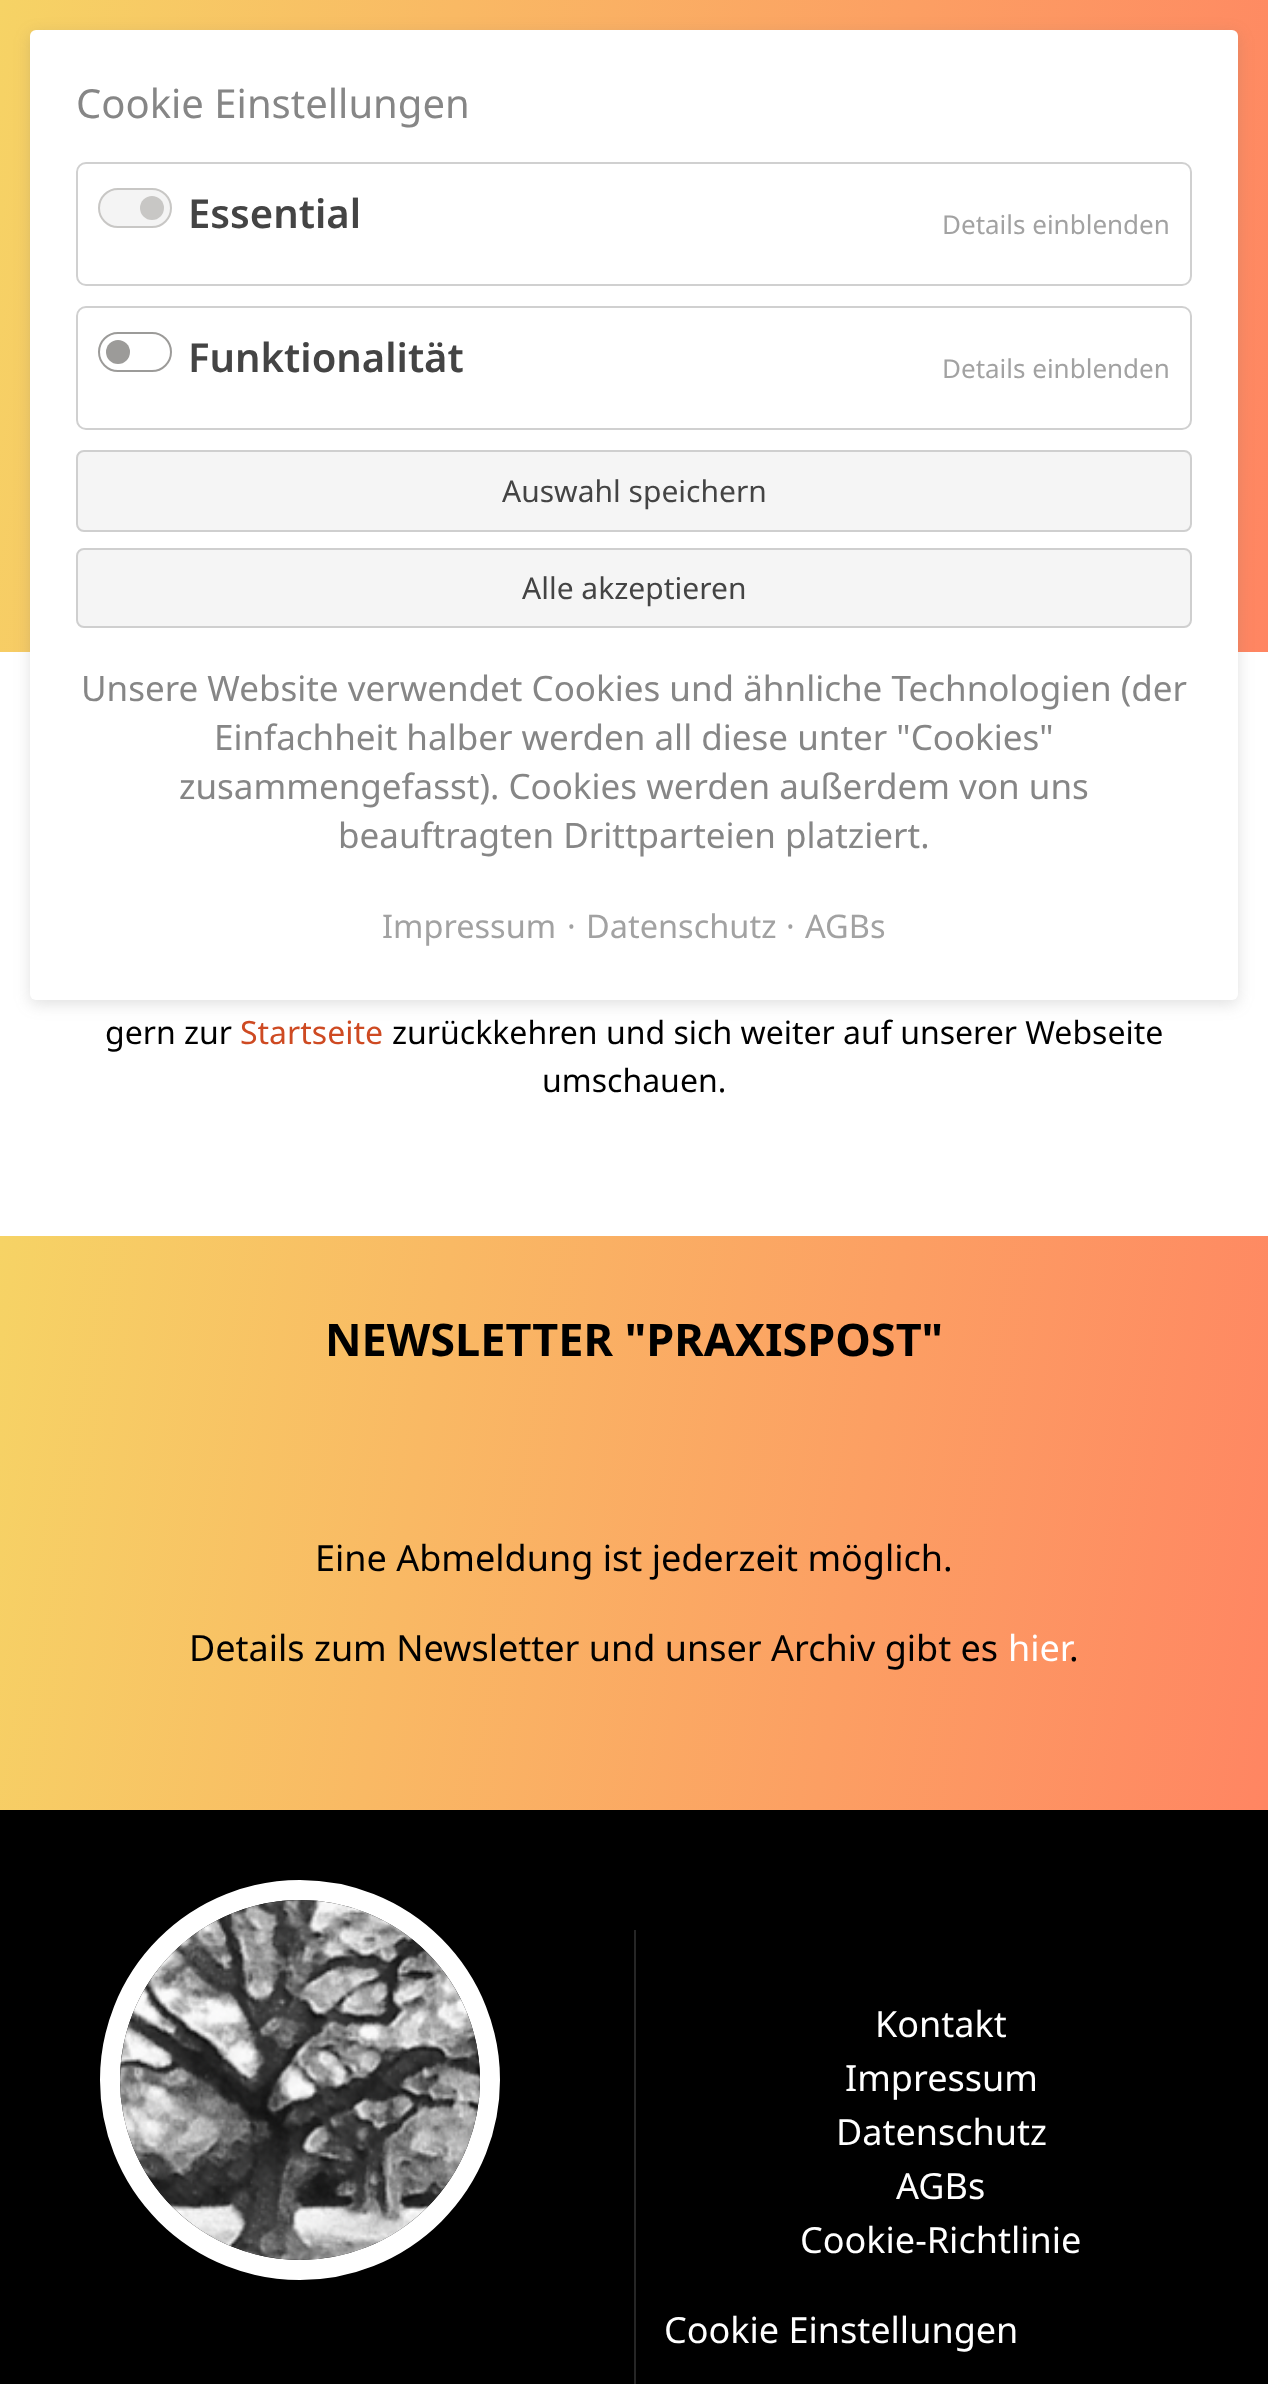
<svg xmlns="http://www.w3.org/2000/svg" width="1268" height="2384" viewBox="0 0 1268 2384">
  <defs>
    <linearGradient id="g1" gradientUnits="userSpaceOnUse" x1="-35" y1="220" x2="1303" y2="432"><stop offset="0" stop-color="rgb(246,211,101)"/><stop offset="1" stop-color="rgb(255,133,98)"/></linearGradient>
    <linearGradient id="g2" gradientUnits="userSpaceOnUse" x1="-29" y1="1418" x2="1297" y2="1628"><stop offset="0" stop-color="rgb(246,211,101)"/><stop offset="1" stop-color="rgb(255,133,98)"/></linearGradient>
  </defs>
  <rect width="100%" height="100%" fill="rgb(255,255,255)"/>
  <rect x="0" y="0" width="1268" height="652" fill="url(#g1)"/>
  <rect x="30" y="34" width="1208" height="970" rx="6" fill="rgba(99,99,99,0.2)" filter="blur(8px)"/>
  <rect x="30" y="30" width="1208" height="970" rx="6" fill="rgb(255,255,255)"/>
  <text x="76" y="118" font-family="Noto Sans" font-size="40" fill="rgb(134,134,134)">Cookie Einstellungen</text>
  <rect x="77" y="163" width="1114" height="122" rx="9" fill="none" stroke="rgb(208,208,208)" stroke-width="2"/>
  <rect x="99" y="189" width="72" height="38" rx="19" fill="rgb(244,244,244)" stroke="rgb(200,199,197)" stroke-width="2"/>
  <circle cx="152" cy="208" r="12" fill="rgb(200,199,197)"/>
  <text x="188" y="228" font-family="Noto Sans" font-size="40" font-weight="600" fill="rgb(68,68,68)">Essential</text>
  <text x="942" y="234" font-family="Noto Sans" font-size="26" fill="rgb(162,162,162)">Details einblenden</text>
  <rect x="77" y="307" width="1114" height="122" rx="9" fill="none" stroke="rgb(208,208,208)" stroke-width="2"/>
  <rect x="99" y="333" width="72" height="38" rx="19" fill="none" stroke="rgb(156,155,153)" stroke-width="2"/>
  <circle cx="118" cy="352" r="12" fill="rgb(156,155,153)"/>
  <text x="188" y="372" font-family="Noto Sans" font-size="40" font-weight="600" fill="rgb(68,68,68)">Funktionalität</text>
  <text x="942" y="378" font-family="Noto Sans" font-size="26" fill="rgb(162,162,162)">Details einblenden</text>
  <rect x="77" y="451" width="1114" height="80" rx="7" fill="rgb(245,245,245)" stroke="rgb(207,207,207)" stroke-width="2"/>
  <text x="502" y="502" font-family="Noto Sans" font-size="30" fill="rgb(68,68,68)">Auswahl speichern</text>
  <rect x="77" y="549" width="1114" height="78" rx="7" fill="rgb(245,245,245)" stroke="rgb(207,207,207)" stroke-width="2"/>
  <text x="522" y="599" font-family="Noto Sans" font-size="30" fill="rgb(68,68,68)">Alle akzeptieren</text>
  <g font-family="Noto Sans" font-size="35" fill="rgb(134,134,134)">
    <text x="81" y="701">Unsere Website verwendet Cookies und ähnliche Technologien (der</text>
    <text x="214" y="750">Einfachheit halber werden all diese unter "Cookies"</text>
    <text x="179" y="799">zusammengefasst). Cookies werden außerdem von uns</text>
    <text x="338" y="848">beauftragten Drittparteien platziert.</text>
  </g>
  <g font-family="Noto Sans" font-size="32.5" fill="rgb(162,162,162)">
    <text x="382" y="938">Impressum</text>
    <text x="567" y="938">·</text>
    <text x="586" y="938">Datenschutz</text>
    <text x="786" y="938">·</text>
    <text x="805" y="938">AGBs</text>
  </g>
  <text x="105" y="1044" font-family="Noto Sans" font-size="32" fill="rgb(0,0,0)">gern zur</text>
  <text x="240" y="1044" font-family="Noto Sans" font-size="32" fill="rgb(206,74,34)">Startseite</text>
  <g font-family="Noto Sans" font-size="32" fill="rgb(0,0,0)">
    <text x="392" y="1044">zurückkehren und sich weiter auf unserer Webseite</text>
    <text x="542" y="1092">umschauen.</text>
  </g>
  <rect x="0" y="1236" width="1268" height="574" fill="url(#g2)"/>
  <text x="325" y="1356" font-family="Noto Sans" font-size="45" font-weight="bold" fill="rgb(0,0,0)">NEWSLETTER "PRAXISPOST"</text>
  <g font-family="Noto Sans" font-size="36" fill="rgb(0,0,0)">
    <text x="315" y="1571">Eine Abmeldung ist jederzeit möglich.</text>
    <text x="189" y="1661">Details zum Newsletter und unser Archiv gibt es</text>
  </g>
  <text x="1008" y="1661" font-family="Noto Sans" font-size="36" fill="rgb(255,255,255)">hier</text>
  <text x="1069" y="1661" font-family="Noto Sans" font-size="36" fill="rgb(0,0,0)">.</text>
  <rect x="0" y="1810" width="1268" height="574" fill="rgb(0,0,0)"/>
  <circle cx="300" cy="2080" r="190" fill="none" stroke="rgb(255,255,255)" stroke-width="20"/>
  <image x="120" y="1900" width="360" height="360" href="pic1.png"/>
  <rect x="634" y="1930" width="2" height="454" fill="rgb(38,38,38)"/>
  <g font-family="Noto Sans" font-size="36" fill="rgb(255,255,255)">
    <text x="875" y="2037">Kontakt</text>
    <text x="845" y="2091">Impressum</text>
    <text x="836" y="2145">Datenschutz</text>
    <text x="896" y="2199">AGBs</text>
    <text x="800" y="2253">Cookie-Richtlinie</text>
    <text x="664" y="2343">Cookie Einstellungen</text>
  </g>
</svg>
